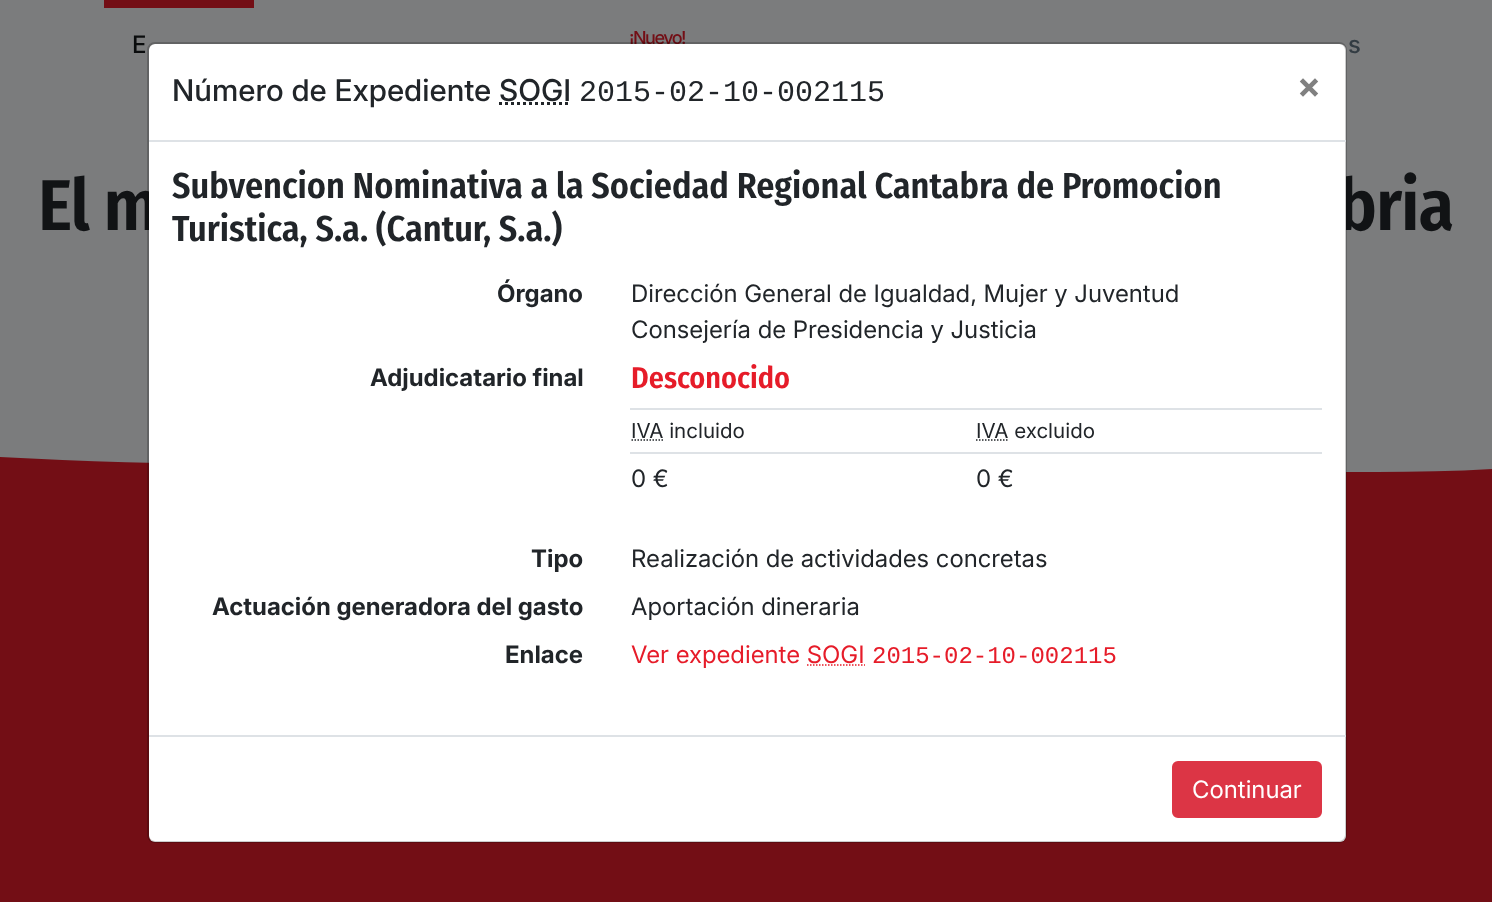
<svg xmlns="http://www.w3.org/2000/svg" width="1492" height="902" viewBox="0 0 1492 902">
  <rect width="100%" height="100%" fill="rgb(123,124,125)"/>
  <rect x="104" y="0" width="150" height="8" fill="rgb(115,14,21)"/>
  <text x="132" y="53" font-family="Inter" font-size="24" font-weight="500" fill="rgb(10,12,13)">E</text>
  <text x="629" y="44" font-family="'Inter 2'" font-size="18" font-weight="500" letter-spacing="-1.5" fill="rgb(115,14,21)">¡Nuevo!</text>
  <text x="1348" y="53" font-family="Inter" font-size="24" font-weight="500" fill="rgb(51,60,67)">s</text>
  <g font-family="Fira Sans Condensed" font-size="72" font-weight="600" letter-spacing="-1" fill="rgb(17,19,21)">
    <text x="38" y="230">El m</text>
    <text x="1338" y="230">bria</text>
  </g>
  <rect x="0" y="457" width="1492" height="445" fill="rgb(115,14,21)"/>
  <path d="M400 462C472 460 542 456 614 454C716 451 823 451 925 454C1025 457 1128 465 1226 469C1313 472 1408 474 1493 469V452H0V457C127 464 266 466 400 462Z" fill="rgb(123,124,125)"/>
  <rect x="149" y="44" width="1197" height="798" rx="6" fill="rgb(255,255,255)"/>
  <rect x="148" y="43" width="1198" height="799" rx="7" fill="none" stroke="rgba(0,0,0,0.2)" stroke-width="2"/>
  <rect x="149" y="140" width="1197" height="2" fill="rgb(222,226,230)"/>
  <text x="172" y="101" font-family="'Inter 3'" font-size="30" font-weight="500" fill="rgb(33,37,41)">Número de Expediente SOGI</text>
  <text x="579" y="101" font-family="Liberation Mono" font-size="30" fill="rgb(33,37,41)">2015-02-10-002115</text>
  <path d="M499 103.5H571" fill="none" stroke="rgb(33,37,41)" stroke-width="3" stroke-dasharray="3 3"/>
  <text x="1297" y="98" font-family="Inter" font-size="36" font-weight="bold" fill="rgb(128,128,128)">×</text>
  <g font-family="Fira Sans Condensed" font-size="36" font-weight="600" fill="rgb(33,37,41)">
    <text>
      <tspan x="172" y="198">Subvencion Nominativa a la Sociedad Regional Cantabra de Promocion</tspan>
      <tspan x="172" y="241">Turistica, S.a. (Cantur, S.a.)</tspan>
    </text>
  </g>
  <text x="497" y="302" font-family="'Inter 2'" font-size="24" font-weight="bold" fill="rgb(33,37,41)">Órgano</text>
  <g font-family="Inter" font-size="24" fill="rgb(33,37,41)">
    <text>
      <tspan x="631" y="302">Dirección General de Igualdad, Mujer y Juventud</tspan>
      <tspan x="631" y="338">Consejería de Presidencia y Justicia</tspan>
    </text>
  </g>
  <text x="370" y="386" font-family="'Inter 2'" font-size="24" font-weight="bold" fill="rgb(33,37,41)">Adjudicatario final</text>
  <text x="631" y="388" font-family="Fira Sans Condensed" font-size="30" font-weight="600" fill="rgb(230,28,41)">Desconocido</text>
  <text x="631" y="438" font-family="'Inter 2'" font-size="20.5" fill="rgb(33,37,41)">IVA incluido</text>
  <path d="M631.5 440H663.5" fill="none" stroke="rgb(33,37,41)" stroke-width="1.5" stroke-dasharray="1.5 1.5"/>
  <rect x="630" y="408" width="692" height="2" fill="rgb(222,226,230)"/>
  <text x="976" y="438" font-family="'Inter 2'" font-size="20.5" fill="rgb(33,37,41)">IVA excluido</text>
  <path d="M976 440H1008.5" fill="none" stroke="rgb(33,37,41)" stroke-width="1.5" stroke-dasharray="1.5 1.5"/>
  <text x="631" y="487" font-family="Inter" font-size="24" fill="rgb(33,37,41)">0 €</text>
  <rect x="630" y="452" width="692" height="2" fill="rgb(222,226,230)"/>
  <text x="976" y="487" font-family="Inter" font-size="24" fill="rgb(33,37,41)">0 €</text>
  <text x="531" y="567" font-family="'Inter 2'" font-size="24" font-weight="bold" fill="rgb(33,37,41)">Tipo</text>
  <text x="631" y="567" font-family="Inter" font-size="24" fill="rgb(33,37,41)">Realización de actividades concretas</text>
  <text x="212" y="615" font-family="'Inter 2'" font-size="24" font-weight="bold" fill="rgb(33,37,41)">Actuación generadora del gasto</text>
  <text x="631" y="615" font-family="Inter" font-size="24" fill="rgb(33,37,41)">Aportación dineraria</text>
  <text x="505" y="663" font-family="'Inter 2'" font-size="24" font-weight="bold" fill="rgb(33,37,41)">Enlace</text>
  <text x="631" y="663" font-family="Inter" font-size="24" fill="rgb(230,28,41)">Ver expediente SOGI</text>
  <path d="M807 665H865" fill="none" stroke="rgb(230,28,41)" stroke-width="1.5" stroke-dasharray="1.5 1.5"/>
  <text x="872" y="663" font-family="Liberation Mono" font-size="24" fill="rgb(230,28,41)">2015-02-10-002115</text>
  <rect x="149" y="735" width="1197" height="2" fill="rgb(222,226,230)"/>
  <rect x="1173" y="762" width="148" height="55" rx="5" fill="rgb(220,53,69)" stroke="rgb(220,53,69)" stroke-width="2"/>
  <text x="1192" y="798" font-family="Inter" font-size="24" fill="rgb(255,255,255)">Continuar</text>
</svg>
